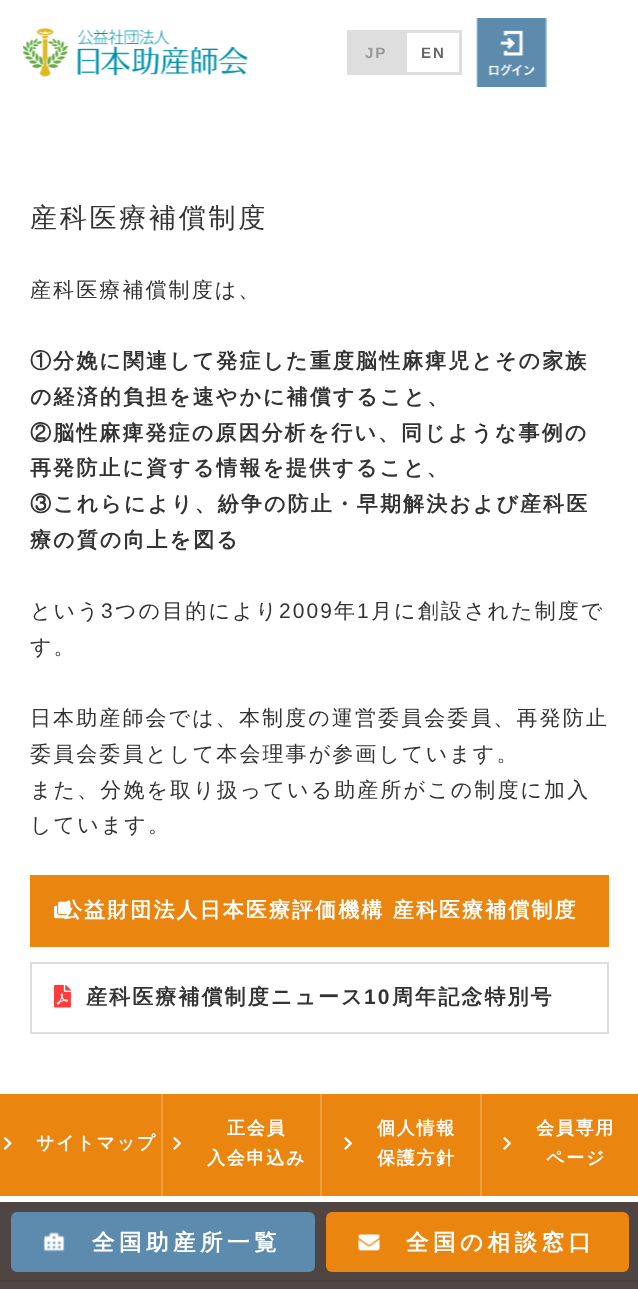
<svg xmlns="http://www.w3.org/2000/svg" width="638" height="1289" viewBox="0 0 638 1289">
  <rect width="100%" height="100%" fill="rgb(255,255,255)"/>
  <rect x="0" y="1202" width="638" height="87" fill="rgb(79,70,68)"/>
  <image x="23" y="28" width="225" height="49" href="pic1.png"/>
  <rect x="347" y="30" width="57" height="45" fill="rgb(222,222,222)"/>
  <text x="365" y="58" font-family="Liberation Sans" font-size="15" font-weight="bold" letter-spacing="2" fill="rgb(153,153,153)">JP</text>
  <rect x="405.5" y="31.5" width="55" height="42" fill="none" stroke="rgb(222,222,222)" stroke-width="3"/>
  <text x="421" y="58" font-family="Liberation Sans" font-size="15" font-weight="bold" letter-spacing="2" fill="rgb(102,102,102)">EN</text>
  <image x="476" y="18" width="71" height="69" href="pic2.png"/>
  <text x="30" y="227" font-family="WenQuanYi Zen Hei" font-size="27" font-weight="500" letter-spacing="2.75" fill="rgb(51,51,51)">産科医療補償制度</text>
  <text x="30" y="297" font-family="WenQuanYi Zen Hei" font-size="21" font-weight="500" letter-spacing="2.1" fill="rgb(51,51,51)">産科医療補償制度は、</text>
  <g font-family="WenQuanYi Zen Hei" font-size="21" font-weight="bold" letter-spacing="2.1" fill="rgb(51,51,51)">
    <text>
      <tspan x="30" y="368">①分娩に関連して発症した重度脳性麻痺児とその家族</tspan>
      <tspan x="30" y="404">の経済的負担を速やかに補償すること、</tspan>
      <tspan x="30" y="440">②脳性麻痺発症の原因分析を行い、同じような事例の</tspan>
      <tspan x="30" y="475">再発防止に資する情報を提供すること、</tspan>
      <tspan x="30" y="511">③これらにより、紛争の防止・早期解決および産科医</tspan>
      <tspan x="30" y="547">療の質の向上を図る</tspan>
    </text>
  </g>
  <text x="30" y="618" font-family="WenQuanYi Zen Hei" font-size="21" font-weight="500" letter-spacing="2.1" fill="rgb(51,51,51)">という</text>
  <text x="101" y="618" font-family="Liberation Sans" font-size="21" letter-spacing="2.1" fill="rgb(51,51,51)">3</text>
  <text x="115" y="618" font-family="WenQuanYi Zen Hei" font-size="21" font-weight="500" letter-spacing="2.1" fill="rgb(51,51,51)">つの目的により</text>
  <text x="279" y="618" font-family="Liberation Sans" font-size="21" letter-spacing="2.1" fill="rgb(51,51,51)">2009</text>
  <text x="334" y="618" font-family="WenQuanYi Zen Hei" font-size="21" font-weight="500" letter-spacing="2.1" fill="rgb(51,51,51)">年</text>
  <text x="357" y="618" font-family="Liberation Sans" font-size="21" letter-spacing="2.1" fill="rgb(51,51,51)">1</text>
  <g font-family="WenQuanYi Zen Hei" font-size="21" font-weight="500" letter-spacing="2.1" fill="rgb(51,51,51)">
    <text x="371" y="618">月に創設された制度で</text>
    <text x="30" y="654">す。</text>
    <text>
      <tspan x="30" y="725">日本助産師会では、本制度の運営委員会委員、再発防止</tspan>
      <tspan x="30" y="761">委員会委員として本会理事が参画しています。</tspan>
      <tspan x="30" y="797">また、分娩を取り扱っている助産所がこの制度に加入</tspan>
      <tspan x="30" y="832">しています。</tspan>
    </text>
  </g>
  <rect x="30" y="875" width="579" height="72" fill="rgb(234,133,15)"/>
  <text x="61" y="917" font-family="WenQuanYi Zen Hei" font-size="21" font-weight="bold" letter-spacing="2.1" fill="rgb(255,255,255)">公益財団法人日本医療評価機構 産科医療補償制度</text>
  <image x="54" y="901" width="17" height="18" href="pic3.png"/>
  <rect x="31" y="963" width="577" height="70" fill="none" stroke="rgb(221,221,221)" stroke-width="2"/>
  <image x="54" y="984" width="17" height="24" href="pic4.png"/>
  <text x="86" y="1004" font-family="WenQuanYi Zen Hei" font-size="21" font-weight="bold" letter-spacing="2.1" fill="rgb(51,51,51)">産科医療補償制度ニュース</text>
  <text x="364" y="1004" font-family="Liberation Sans" font-size="21" font-weight="bold" letter-spacing="2.1" fill="rgb(51,51,51)">10</text>
  <text x="392" y="1004" font-family="WenQuanYi Zen Hei" font-size="21" font-weight="bold" letter-spacing="2.1" fill="rgb(51,51,51)">周年記念特別号</text>
  <rect x="0" y="1094" width="161" height="102" fill="rgb(234,133,15)"/>
  <image x="3" y="1137" width="9" height="13" href="pic5.png"/>
  <text x="36" y="1149" font-family="WenQuanYi Zen Hei" font-size="18" font-weight="bold" letter-spacing="1.75" fill="rgb(255,255,255)">サイトマップ</text>
  <rect x="161" y="1094" width="2" height="102" fill="rgb(238,157,63)"/>
  <rect x="163" y="1094" width="157" height="102" fill="rgb(234,133,15)"/>
  <text x="227" y="1134" font-family="WenQuanYi Zen Hei" font-size="18" font-weight="bold" letter-spacing="1.75" fill="rgb(255,255,255)">正会員</text>
  <image x="173" y="1137" width="8" height="13" href="pic6.png"/>
  <text x="207" y="1164" font-family="WenQuanYi Zen Hei" font-size="18" font-weight="bold" letter-spacing="1.75" fill="rgb(255,255,255)">入会申込み</text>
  <rect x="320" y="1094" width="2" height="102" fill="rgb(238,157,63)"/>
  <rect x="322" y="1094" width="158" height="102" fill="rgb(234,133,15)"/>
  <text x="377" y="1134" font-family="WenQuanYi Zen Hei" font-size="18" font-weight="bold" letter-spacing="1.75" fill="rgb(255,255,255)">個人情報</text>
  <image x="344" y="1137" width="8" height="13" href="pic6.png"/>
  <text x="377" y="1164" font-family="WenQuanYi Zen Hei" font-size="18" font-weight="bold" letter-spacing="1.75" fill="rgb(255,255,255)">保護方針</text>
  <rect x="480" y="1094" width="2" height="102" fill="rgb(238,157,63)"/>
  <rect x="482" y="1094" width="156" height="102" fill="rgb(234,133,15)"/>
  <text x="536" y="1134" font-family="WenQuanYi Zen Hei" font-size="18" font-weight="bold" letter-spacing="1.75" fill="rgb(255,255,255)">会員専用</text>
  <image x="503" y="1137" width="8" height="13" href="pic6.png"/>
  <text x="546" y="1164" font-family="WenQuanYi Zen Hei" font-size="18" font-weight="bold" letter-spacing="1.75" fill="rgb(255,255,255)">ページ</text>
  <rect x="0" y="1280" width="638" height="2" fill="rgb(72,63,61)"/>
  <rect x="11" y="1212" width="304" height="60" rx="6" fill="rgb(93,139,173)"/>
  <image x="43" y="1232" width="22" height="20" href="pic7.png"/>
  <text x="92" y="1250" font-family="WenQuanYi Zen Hei" font-size="22.5" font-weight="bold" letter-spacing="4.5" fill="rgb(255,255,255)">全国助産所一覧</text>
  <rect x="326" y="1212" width="303" height="60" rx="6" fill="rgb(234,133,15)"/>
  <image x="358" y="1234" width="22" height="17" href="pic8.png"/>
  <text x="406" y="1250" font-family="WenQuanYi Zen Hei" font-size="22.5" font-weight="bold" letter-spacing="4.5" fill="rgb(255,255,255)">全国の相談窓口</text>
</svg>
